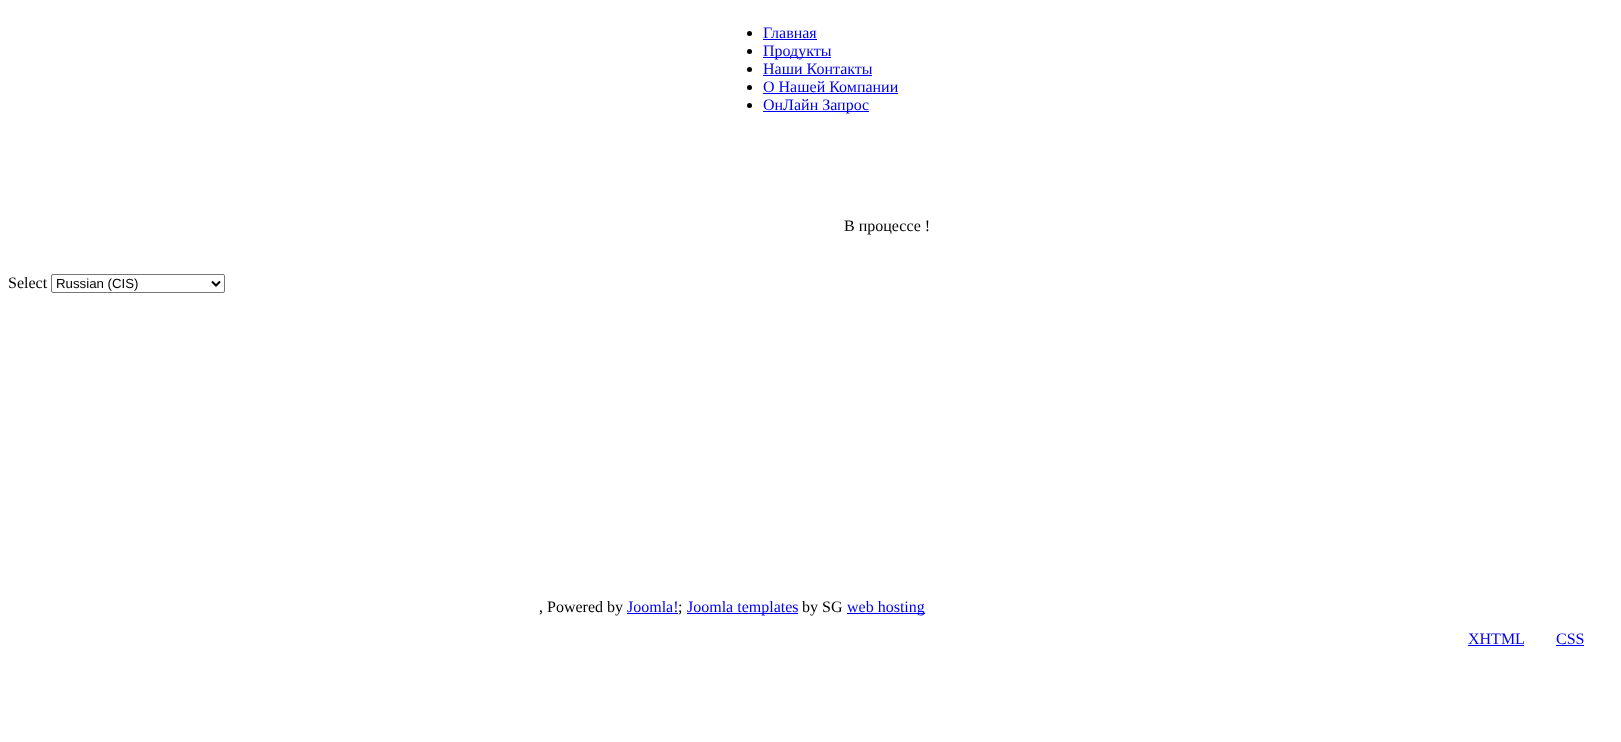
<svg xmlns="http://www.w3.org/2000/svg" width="1621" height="742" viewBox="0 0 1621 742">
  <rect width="100%" height="100%" fill="rgb(255,255,255)"/>
  <circle cx="749.5" cy="33.5" r="2.5" fill="rgb(0,0,0)"/>
  <text x="763" y="38" font-family="Liberation Serif" font-size="16" fill="rgb(0,0,238)">Главная</text>
  <rect x="763" y="39" width="54" height="1" fill="rgb(0,0,238)"/>
  <circle cx="749.5" cy="51.5" r="2.5" fill="rgb(0,0,0)"/>
  <rect x="763" y="57" width="68" height="1" fill="rgb(0,0,238)"/>
  <text x="763" y="56" font-family="Liberation Serif" font-size="16" fill="rgb(0,0,238)">Продукты</text>
  <circle cx="749.5" cy="69.5" r="2.5" fill="rgb(0,0,0)"/>
  <text x="763" y="74" font-family="Liberation Serif" font-size="16" fill="rgb(0,0,238)">Наши Контакты</text>
  <rect x="763" y="75" width="109" height="1" fill="rgb(0,0,238)"/>
  <circle cx="749.5" cy="87.5" r="2.5" fill="rgb(0,0,0)"/>
  <text x="763" y="92" font-family="Liberation Serif" font-size="16" fill="rgb(0,0,238)">О Нашей Компании</text>
  <rect x="763" y="93" width="135" height="1" fill="rgb(0,0,238)"/>
  <circle cx="749.5" cy="105.5" r="2.5" fill="rgb(0,0,0)"/>
  <rect x="763" y="111" width="106" height="1" fill="rgb(0,0,238)"/>
  <text x="763" y="110" font-family="Liberation Serif" font-size="16" fill="rgb(0,0,238)">ОнЛайн Запрос</text>
  <g font-family="Liberation Serif" font-size="16" fill="rgb(0,0,0)">
    <text x="844" y="231">В процессе !</text>
    <text x="8" y="288">Select</text>
  </g>
  <rect x="51.5" y="274.5" width="173" height="18" rx="1.5" fill="none" stroke="rgb(118,118,118)"/>
  <path d="M212 281.5L216 285.5L220 281.5" fill="none" stroke="rgb(0,0,0)" stroke-width="2"/>
  <text x="56" y="288" font-family="Liberation Sans" font-size="13.25" fill="rgb(0,0,0)">Russian (CIS)</text>
  <text x="1468" y="644" font-family="Liberation Serif" font-size="16" fill="rgb(0,0,238)">XHTML</text>
  <rect x="1468" y="645" width="56" height="1" fill="rgb(0,0,238)"/>
  <text x="1556" y="644" font-family="Liberation Serif" font-size="16" fill="rgb(0,0,238)">CSS</text>
  <rect x="1556" y="645" width="28" height="1" fill="rgb(0,0,238)"/>
  <text x="539" y="612" font-family="Liberation Serif" font-size="16" fill="rgb(0,0,0)">, Powered by</text>
  <text x="627" y="612" font-family="Liberation Serif" font-size="16" fill="rgb(0,0,238)">Joomla!</text>
  <rect x="627" y="613" width="51" height="1" fill="rgb(0,0,238)"/>
  <text x="678" y="612" font-family="Liberation Serif" font-size="16" fill="rgb(0,0,0)">;</text>
  <rect x="687" y="613" width="111" height="1" fill="rgb(0,0,238)"/>
  <text x="687" y="612" font-family="Liberation Serif" font-size="16" fill="rgb(0,0,238)">Joomla templates</text>
  <text x="802" y="612" font-family="Liberation Serif" font-size="16" fill="rgb(0,0,0)">by SG</text>
  <rect x="847" y="613" width="78" height="1" fill="rgb(0,0,238)"/>
  <text x="847" y="612" font-family="Liberation Serif" font-size="16" fill="rgb(0,0,238)">web hosting</text>
</svg>
